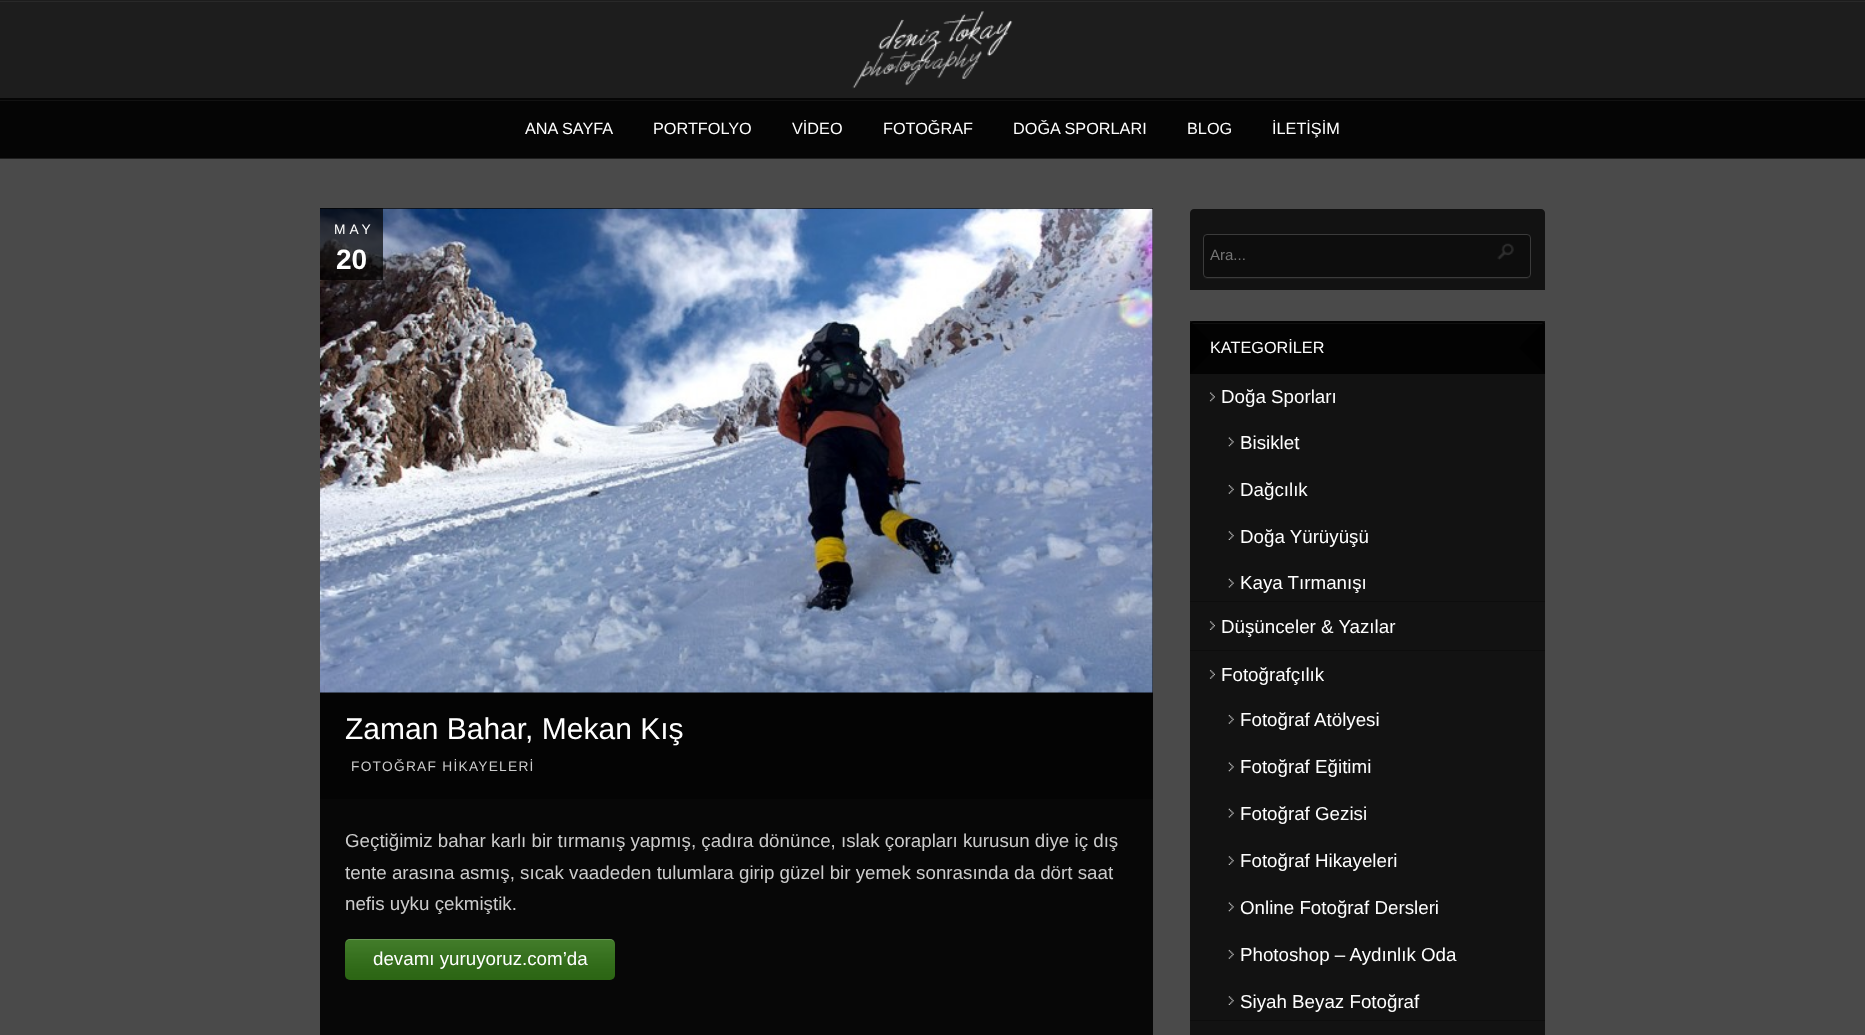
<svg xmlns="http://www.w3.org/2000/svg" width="1865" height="1035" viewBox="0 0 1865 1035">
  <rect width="100%" height="100%" fill="rgb(74,74,74)"/>
  <rect x="0" y="0" width="1865" height="158" fill="rgba(0,0,0,0.6)"/>
  <rect x="0" y="1" width="1865" height="1" fill="rgb(41,41,41)"/>
  <rect x="0" y="158" width="1865" height="1" fill="rgb(31,31,31)"/>
  <image x="852" y="11" width="161" height="78" href="pic1.png"/>
  <rect x="0" y="98" width="1865" height="60" fill="rgba(0,0,0,0.8)"/>
  <rect x="0" y="100" width="1865" height="1" fill="rgb(18,18,18)"/>
  <g font-family="Liberation Sans" font-size="16.25" fill="rgb(255,255,255)">
    <text x="525" y="134">ANA SAYFA</text>
    <text x="653" y="134">PORTFOLYO</text>
    <text x="792" y="134">VİDEO</text>
    <text x="883" y="134">FOTOĞRAF</text>
    <text x="1013" y="134">DOĞA SPORLARI</text>
    <text x="1187" y="134">BLOG</text>
    <text x="1272" y="134">İLETİŞİM</text>
  </g>
  <rect x="320" y="208" width="833" height="827" fill="rgb(7,7,7)"/>
  <image x="320" y="208" width="833" height="485" href="pic2.png"/>
  <rect x="320" y="208" width="63" height="72" fill="rgba(0,0,0,0.7)"/>
  <text x="334" y="234" font-family="Liberation Sans" font-size="13.75" letter-spacing="4" fill="rgb(255,255,255)">MAY</text>
  <text x="336" y="269" font-family="Liberation Sans" font-size="28" font-weight="bold" fill="rgb(255,255,255)">20</text>
  <rect x="320" y="693" width="833" height="106" fill="rgb(4,4,4)"/>
  <text x="345" y="739" font-family="Liberation Sans" font-size="30" fill="rgb(255,255,255)">Zaman Bahar, Mekan Kış</text>
  <text x="351" y="771" font-family="Liberation Sans" font-size="13.75" letter-spacing="1.25" fill="rgb(204,204,204)">FOTOĞRAF HİKAYELERİ</text>
  <g font-family="Liberation Sans" font-size="18.75" fill="rgb(204,204,204)">
    <text>
      <tspan x="345" y="847">Geçtiğimiz bahar karlı bir tırmanış yapmış, çadıra dönünce, ıslak çorapları kurusun diye iç dış</tspan>
      <tspan x="345" y="879">tente arasına asmış, sıcak vaadeden tulumlara girip güzel bir yemek sonrasında da dört saat</tspan>
      <tspan x="345" y="910">nefis uyku çekmiştik.</tspan>
    </text>
  </g>
  <rect x="345" y="939" width="270" height="41" rx="5" fill="rgb(52,120,23)"/>
  <image x="345" y="939" width="270" height="41" href="pic3.png"/>
  <path d="M350 940H610C613 940 615 942 615 945C615 942 613 939 610 939H350C347 939 345 942 345 945C345 942 347 940 350 940Z" fill="rgba(255,255,255,0.2)"/>
  <text x="373" y="965" font-family="Liberation Sans" font-size="18.75" fill="rgb(255,255,255)">devamı yuruyoruz.com’da</text>
  <path d="M1194 209H1541C1543 209 1545 211 1545 213V290H1190V213C1190 211 1192 209 1194 209Z" fill="rgb(18,18,18)"/>
  <path d="M1203 276C1203 278 1205 279 1207 279H1527C1529 279 1531 277 1531 275C1530 277 1529 278 1528 278H1206C1205 278 1204 277 1203 276Z" fill="rgb(27,27,27)"/>
  <rect x="1203.5" y="234.5" width="327" height="43" rx="3.5" fill="rgb(13,13,13)" stroke="rgb(59,59,59)"/>
  <text x="1210" y="260" font-family="Liberation Sans" font-size="15" fill="rgb(117,117,117)">Ara...</text>
  <image x="1497" y="243" width="17" height="17" href="pic4.png"/>
  <path d="M1194 321H1541C1543 321 1545 323 1545 325V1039H1190V325C1190 323 1192 321 1194 321Z" fill="rgb(18,18,18)"/>
  <rect x="1190" y="321" width="355" height="53" fill="rgba(0,0,0,0.8)"/>
  <path d="M1194 324H1541C1543 324 1544 325 1544 326C1544 324 1543 323 1542 323H1194C1192 323 1191 324 1191 326C1191 325 1192 324 1194 324Z" fill="rgb(16,16,16)"/>
  <path d="M1544 322L1519 348L1545 374V325C1545 324 1545 323 1544 322Z" fill="rgba(0,0,0,0.6)"/>
  <path d="M1190 374L1216 348L1191 322C1190 323 1190 324 1190 325Z" fill="rgba(0,0,0,0.6)"/>
  <text x="1210" y="353" font-family="Liberation Sans" font-size="16.25" fill="rgb(255,255,255)">KATEGORİLER</text>
  <image x="1209" y="392" width="6" height="10" href="pic5.png"/>
  <rect x="1190" y="601" width="355" height="1" fill="rgb(13,13,13)"/>
  <text x="1221" y="403" font-family="Liberation Sans" font-size="18.75" fill="rgb(255,255,255)">Doğa Sporları</text>
  <image x="1228" y="437" width="6" height="10" href="pic6.png"/>
  <text x="1240" y="449" font-family="Liberation Sans" font-size="18.75" fill="rgb(255,255,255)">Bisiklet</text>
  <image x="1228" y="484" width="6" height="10" href="pic7.png"/>
  <text x="1240" y="496" font-family="Liberation Sans" font-size="18.75" fill="rgb(255,255,255)">Dağcılık</text>
  <image x="1228" y="531" width="6" height="9" href="pic8.png"/>
  <text x="1240" y="543" font-family="Liberation Sans" font-size="18.75" fill="rgb(255,255,255)">Doğa Yürüyüşü</text>
  <image x="1228" y="578" width="6" height="10" href="pic9.png"/>
  <text x="1240" y="589" font-family="Liberation Sans" font-size="18.75" fill="rgb(255,255,255)">Kaya Tırmanışı</text>
  <image x="1209" y="621" width="6" height="9" href="pic10.png"/>
  <rect x="1190" y="650" width="355" height="1" fill="rgb(13,13,13)"/>
  <text x="1221" y="633" font-family="Liberation Sans" font-size="18.75" fill="rgb(255,255,255)">Düşünceler &amp; Yazılar</text>
  <image x="1209" y="669" width="6" height="10" href="pic11.png"/>
  <rect x="1190" y="1020" width="355" height="1" fill="rgb(13,13,13)"/>
  <text x="1221" y="681" font-family="Liberation Sans" font-size="18.75" fill="rgb(255,255,255)">Fotoğrafçılık</text>
  <image x="1228" y="714" width="6" height="10" href="pic7.png"/>
  <text x="1240" y="726" font-family="Liberation Sans" font-size="18.75" fill="rgb(255,255,255)">Fotoğraf Atölyesi</text>
  <image x="1228" y="762" width="6" height="10" href="pic6.png"/>
  <text x="1240" y="773" font-family="Liberation Sans" font-size="18.75" fill="rgb(255,255,255)">Fotoğraf Eğitimi</text>
  <image x="1228" y="808" width="6" height="10" href="pic9.png"/>
  <text x="1240" y="820" font-family="Liberation Sans" font-size="18.75" fill="rgb(255,255,255)">Fotoğraf Gezisi</text>
  <image x="1228" y="856" width="6" height="9" href="pic8.png"/>
  <text x="1240" y="867" font-family="Liberation Sans" font-size="18.75" fill="rgb(255,255,255)">Fotoğraf Hikayeleri</text>
  <image x="1228" y="902" width="6" height="10" href="pic6.png"/>
  <text x="1240" y="914" font-family="Liberation Sans" font-size="18.75" fill="rgb(255,255,255)">Online Fotoğraf Dersleri</text>
  <image x="1228" y="949" width="6" height="10" href="pic7.png"/>
  <text x="1240" y="961" font-family="Liberation Sans" font-size="18.75" fill="rgb(255,255,255)">Photoshop – Aydınlık Oda</text>
  <image x="1228" y="996" width="6" height="9" href="pic8.png"/>
  <text x="1240" y="1008" font-family="Liberation Sans" font-size="18.75" fill="rgb(255,255,255)">Siyah Beyaz Fotoğraf</text>
</svg>
